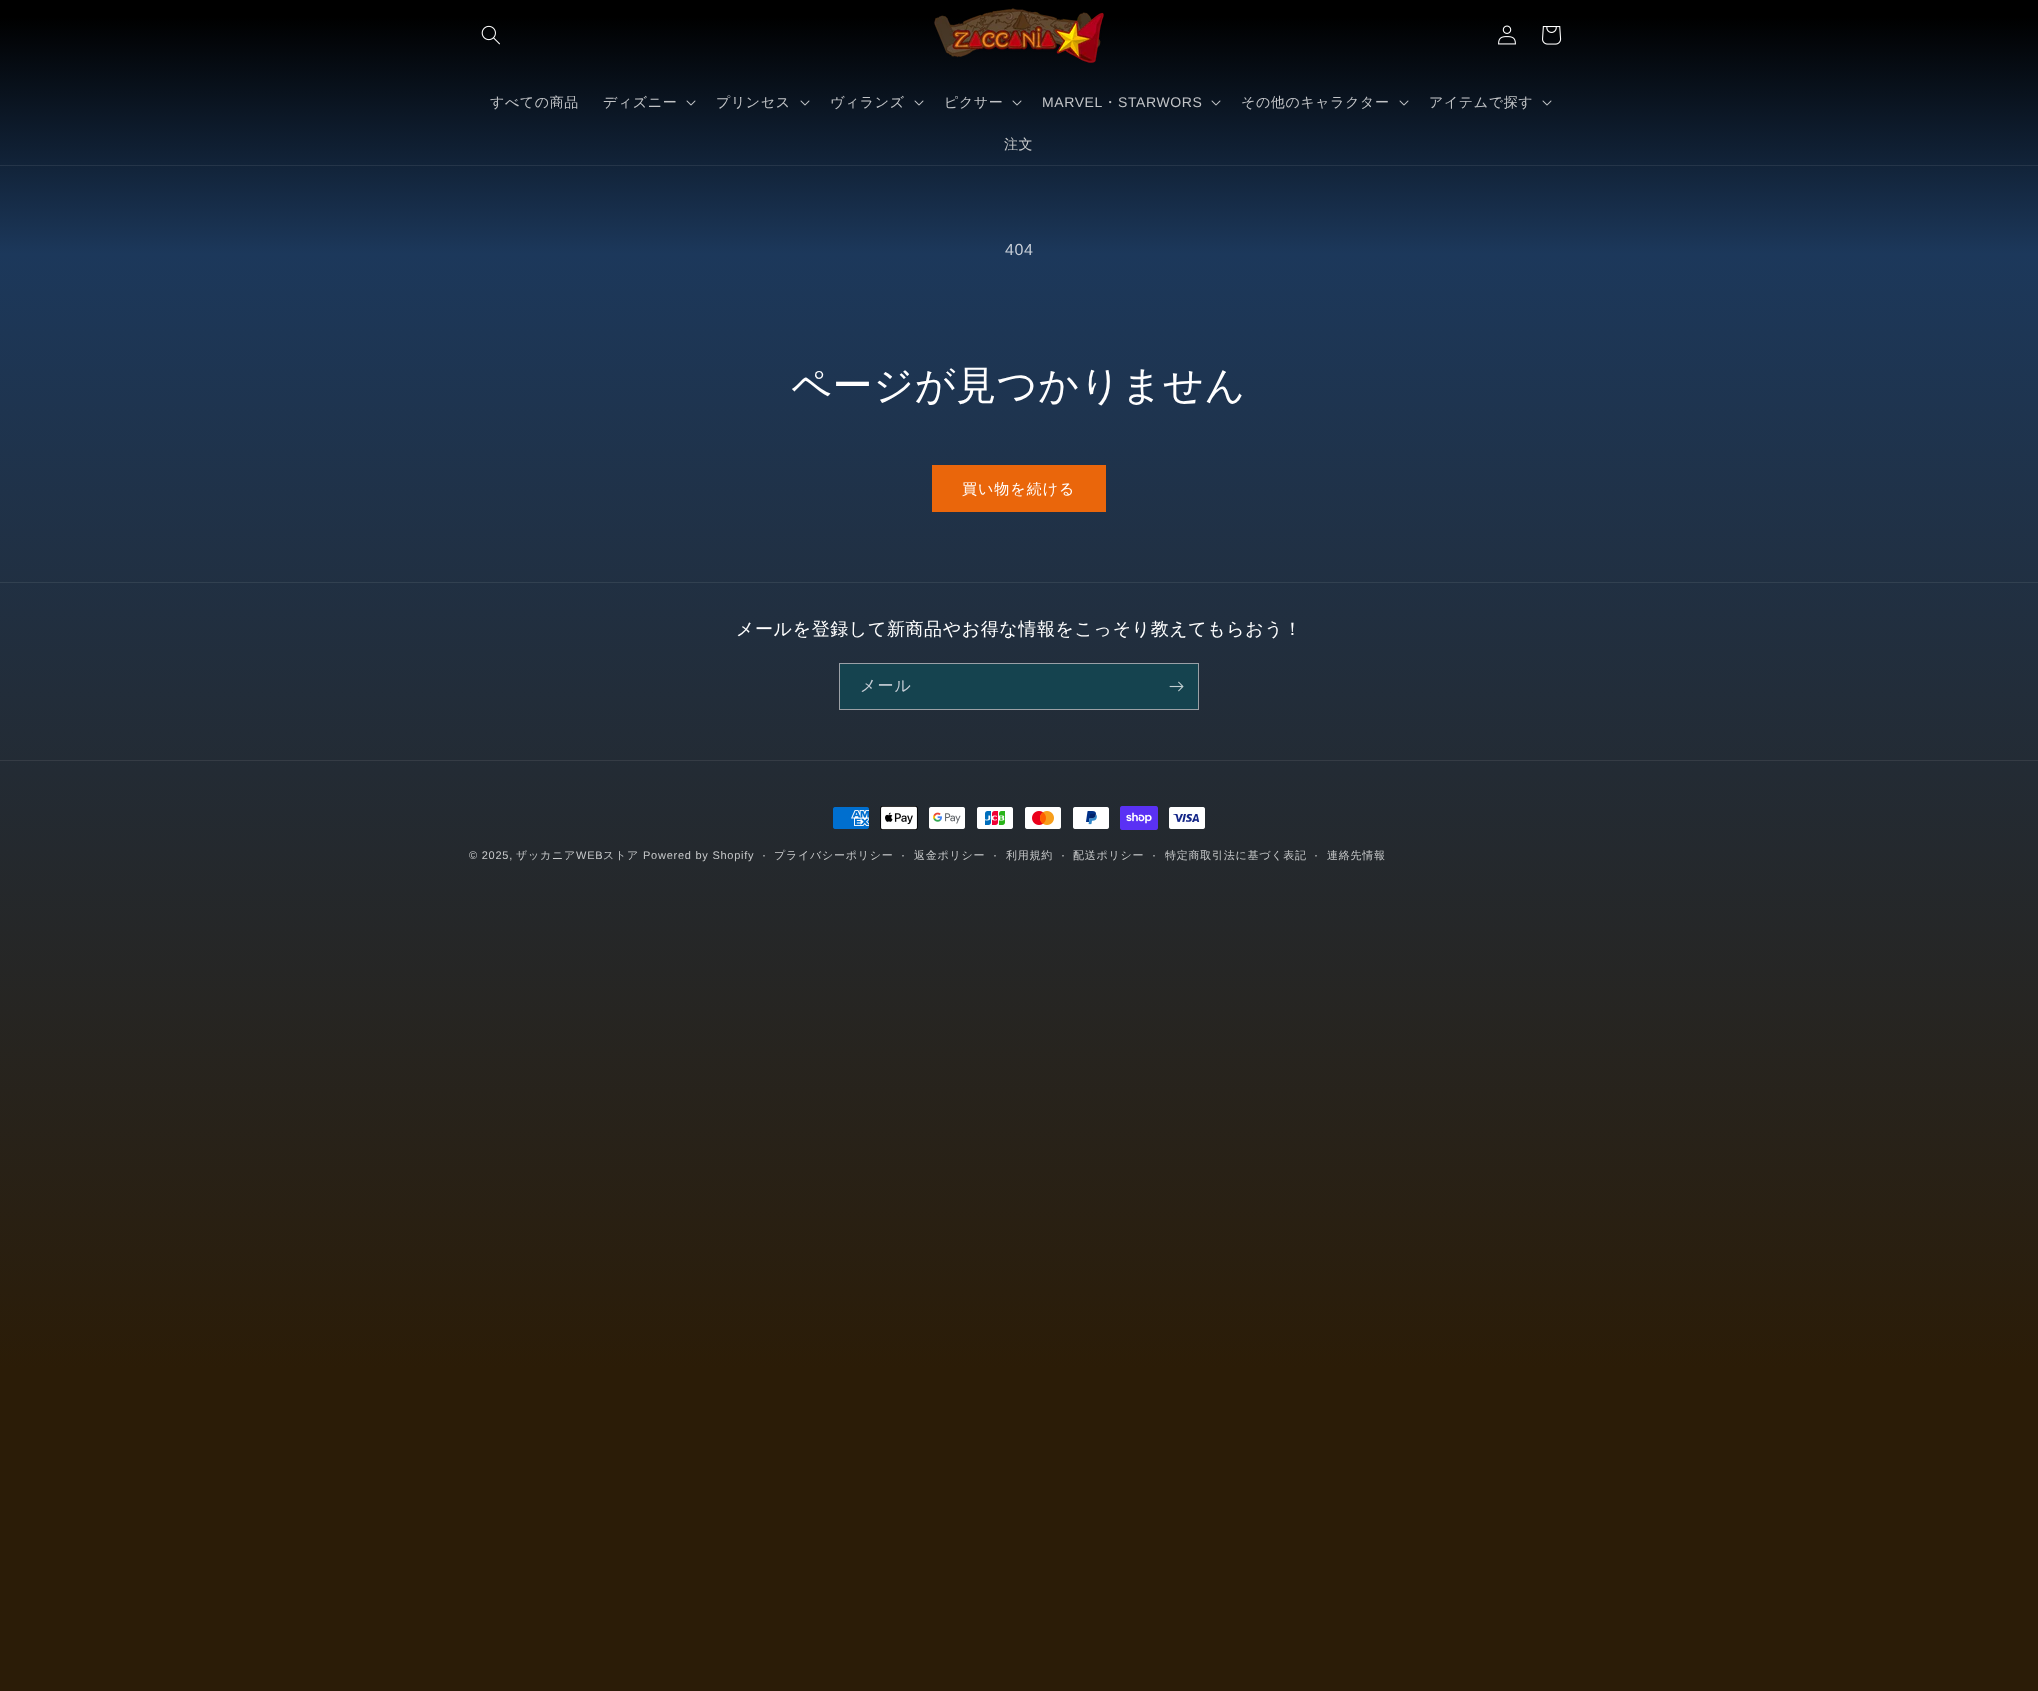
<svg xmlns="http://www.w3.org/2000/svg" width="2038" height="1691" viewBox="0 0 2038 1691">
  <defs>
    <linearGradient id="g1" gradientUnits="userSpaceOnUse" x1="1019" y1="0" x2="1019" y2="1691"><stop offset="0.01" stop-color="rgb(0,0,0)"/><stop offset="0.15" stop-color="rgb(28,56,91)"/><stop offset="0.81" stop-color="rgb(43,28,7)"/></linearGradient>
  </defs>
  <rect width="100%" height="100%" fill="rgb(255,255,255)"/>
  <rect x="0" y="0" width="2038" height="1691" fill="url(#g1)"/>
  <rect x="0" y="165" width="2038" height="1" fill="rgb(37,53,73)"/>
  <image x="481" y="25" width="19" height="20" href="pic1.png"/>
  <image x="934" y="8" width="170" height="55" href="pic2.png"/>
  <image x="1498" y="25" width="18" height="20" href="pic3.png"/>
  <image x="1542" y="26" width="20" height="19" href="pic4.png"/>
  <g font-family="WenQuanYi Zen Hei" font-size="14" font-weight="500" letter-spacing="0.6" fill="rgb(194,196,199)">
    <text x="490" y="107">すべての商品</text>
    <text x="603" y="107">ディズニー</text>
  </g>
  <image x="686" y="100" width="10" height="6" href="pic5.png"/>
  <text x="716" y="107" font-family="WenQuanYi Zen Hei" font-size="14" font-weight="500" letter-spacing="0.6" fill="rgb(194,196,199)">プリンセス</text>
  <image x="800" y="100" width="10" height="6" href="pic5.png"/>
  <text x="830" y="107" font-family="WenQuanYi Zen Hei" font-size="14" font-weight="500" letter-spacing="0.6" fill="rgb(194,196,199)">ヴィランズ</text>
  <image x="914" y="100" width="10" height="6" href="pic5.png"/>
  <text x="944" y="107" font-family="WenQuanYi Zen Hei" font-size="14" font-weight="500" letter-spacing="0.6" fill="rgb(194,196,199)">ピクサー</text>
  <image x="1012" y="100" width="10" height="6" href="pic5.png"/>
  <text x="1042" y="107" font-family="Liberation Sans" font-size="14" letter-spacing="0.6" fill="rgb(194,196,199)">MARVEL</text>
  <text x="1103" y="107" font-family="WenQuanYi Zen Hei" font-size="14" font-weight="500" letter-spacing="0.6" fill="rgb(194,196,199)">・</text>
  <text x="1118" y="107" font-family="Liberation Sans" font-size="14" letter-spacing="0.6" fill="rgb(194,196,199)">STARWORS</text>
  <image x="1211" y="100" width="10" height="6" href="pic5.png"/>
  <text x="1241" y="107" font-family="WenQuanYi Zen Hei" font-size="14" font-weight="500" letter-spacing="0.6" fill="rgb(194,196,199)">その他のキャラクター</text>
  <image x="1399" y="100" width="10" height="6" href="pic5.png"/>
  <text x="1429" y="107" font-family="WenQuanYi Zen Hei" font-size="14" font-weight="500" letter-spacing="0.6" fill="rgb(194,196,199)">アイテムで探す</text>
  <image x="1542" y="100" width="10" height="6" href="pic5.png"/>
  <text x="1004" y="149" font-family="WenQuanYi Zen Hei" font-size="14" font-weight="500" letter-spacing="0.6" fill="rgb(200,202,203)">注文</text>
  <text x="1005" y="255" font-family="Liberation Sans" font-size="16" letter-spacing="0.6" fill="rgb(198,205,214)">404</text>
  <text x="791" y="399" font-family="WenQuanYi Zen Hei" font-size="40" font-weight="500" letter-spacing="0.6" fill="rgb(255,255,255)">ページが見つかりません</text>
  <rect x="932" y="465" width="174" height="47" fill="rgb(234,102,11)"/>
  <text x="962" y="494" font-family="WenQuanYi Zen Hei" font-size="15" font-weight="500" letter-spacing="1" fill="rgb(255,255,255)">買い物を続ける</text>
  <rect x="0" y="582" width="2038" height="1" fill="rgb(50,65,81)"/>
  <text x="736" y="635" font-family="WenQuanYi Zen Hei" font-size="18" font-weight="500" letter-spacing="0.6" fill="rgb(255,255,255)">メールを登録して新商品やお得な情報をこっそり教えてもらおう！</text>
  <rect x="840" y="664" width="358" height="45" fill="rgb(21,67,79)"/>
  <rect x="839.5" y="663.5" width="359" height="46" fill="none" stroke="rgba(255,255,255,0.55)"/>
  <text x="860" y="691" font-family="WenQuanYi Zen Hei" font-size="16" font-weight="500" letter-spacing="1" fill="rgb(198,205,214)">メール</text>
  <image x="1169" y="681" width="15" height="11" href="pic6.png"/>
  <rect x="0" y="760" width="2038" height="1" fill="rgb(53,60,69)"/>
  <image x="833" y="807" width="36" height="22" href="pic7.png"/>
  <image x="880" y="806" width="38" height="24" href="pic8.png"/>
  <image x="929" y="807" width="36" height="22" href="pic9.png"/>
  <image x="977" y="807" width="36" height="22" href="pic10.png"/>
  <image x="1025" y="807" width="36" height="22" href="pic11.png"/>
  <image x="1073" y="807" width="36" height="22" href="pic12.png"/>
  <image x="1120" y="806" width="38" height="24" href="pic13.png"/>
  <image x="1169" y="807" width="36" height="22" href="pic14.png"/>
  <text x="469" y="859" font-family="Liberation Sans" font-size="11" letter-spacing="0.75" fill="rgb(200,202,203)">© 2025,</text>
  <text x="516" y="859" font-family="WenQuanYi Zen Hei" font-size="11" font-weight="500" letter-spacing="0.75" fill="rgb(200,202,203)">ザッカニア</text>
  <text x="576" y="859" font-family="Liberation Sans" font-size="11" letter-spacing="0.75" fill="rgb(200,202,203)">WEB</text>
  <text x="603" y="859" font-family="WenQuanYi Zen Hei" font-size="11" font-weight="500" letter-spacing="0.75" fill="rgb(200,202,203)">ストア</text>
  <text x="643" y="859" font-family="Liberation Sans" font-size="11" letter-spacing="0.75" fill="rgb(200,202,203)">Powered by Shopify</text>
  <text x="762" y="859" font-family="Liberation Sans" font-size="12" letter-spacing="0.75" fill="rgb(200,202,203)">·</text>
  <text x="774" y="859" font-family="WenQuanYi Zen Hei" font-size="11" font-weight="500" letter-spacing="0.75" fill="rgb(200,202,203)">プライバシーポリシー</text>
  <text x="901" y="859" font-family="Liberation Sans" font-size="12" letter-spacing="0.75" fill="rgb(200,202,203)">·</text>
  <text x="914" y="859" font-family="WenQuanYi Zen Hei" font-size="11" font-weight="500" letter-spacing="0.75" fill="rgb(200,202,203)">返金ポリシー</text>
  <text x="993" y="859" font-family="Liberation Sans" font-size="12" letter-spacing="0.75" fill="rgb(200,202,203)">·</text>
  <text x="1006" y="859" font-family="WenQuanYi Zen Hei" font-size="11" font-weight="500" letter-spacing="0.75" fill="rgb(200,202,203)">利用規約</text>
  <text x="1061" y="859" font-family="Liberation Sans" font-size="12" letter-spacing="0.75" fill="rgb(200,202,203)">·</text>
  <text x="1073" y="859" font-family="WenQuanYi Zen Hei" font-size="11" font-weight="500" letter-spacing="0.75" fill="rgb(200,202,203)">配送ポリシー</text>
  <text x="1152" y="859" font-family="Liberation Sans" font-size="12" letter-spacing="0.75" fill="rgb(200,202,203)">·</text>
  <text x="1165" y="859" font-family="WenQuanYi Zen Hei" font-size="11" font-weight="500" letter-spacing="0.75" fill="rgb(200,202,203)">特定商取引法に基づく表記</text>
  <text x="1314" y="859" font-family="Liberation Sans" font-size="12" letter-spacing="0.75" fill="rgb(200,202,203)">·</text>
  <text x="1327" y="859" font-family="WenQuanYi Zen Hei" font-size="11" font-weight="500" letter-spacing="0.75" fill="rgb(200,202,203)">連絡先情報</text>
</svg>
